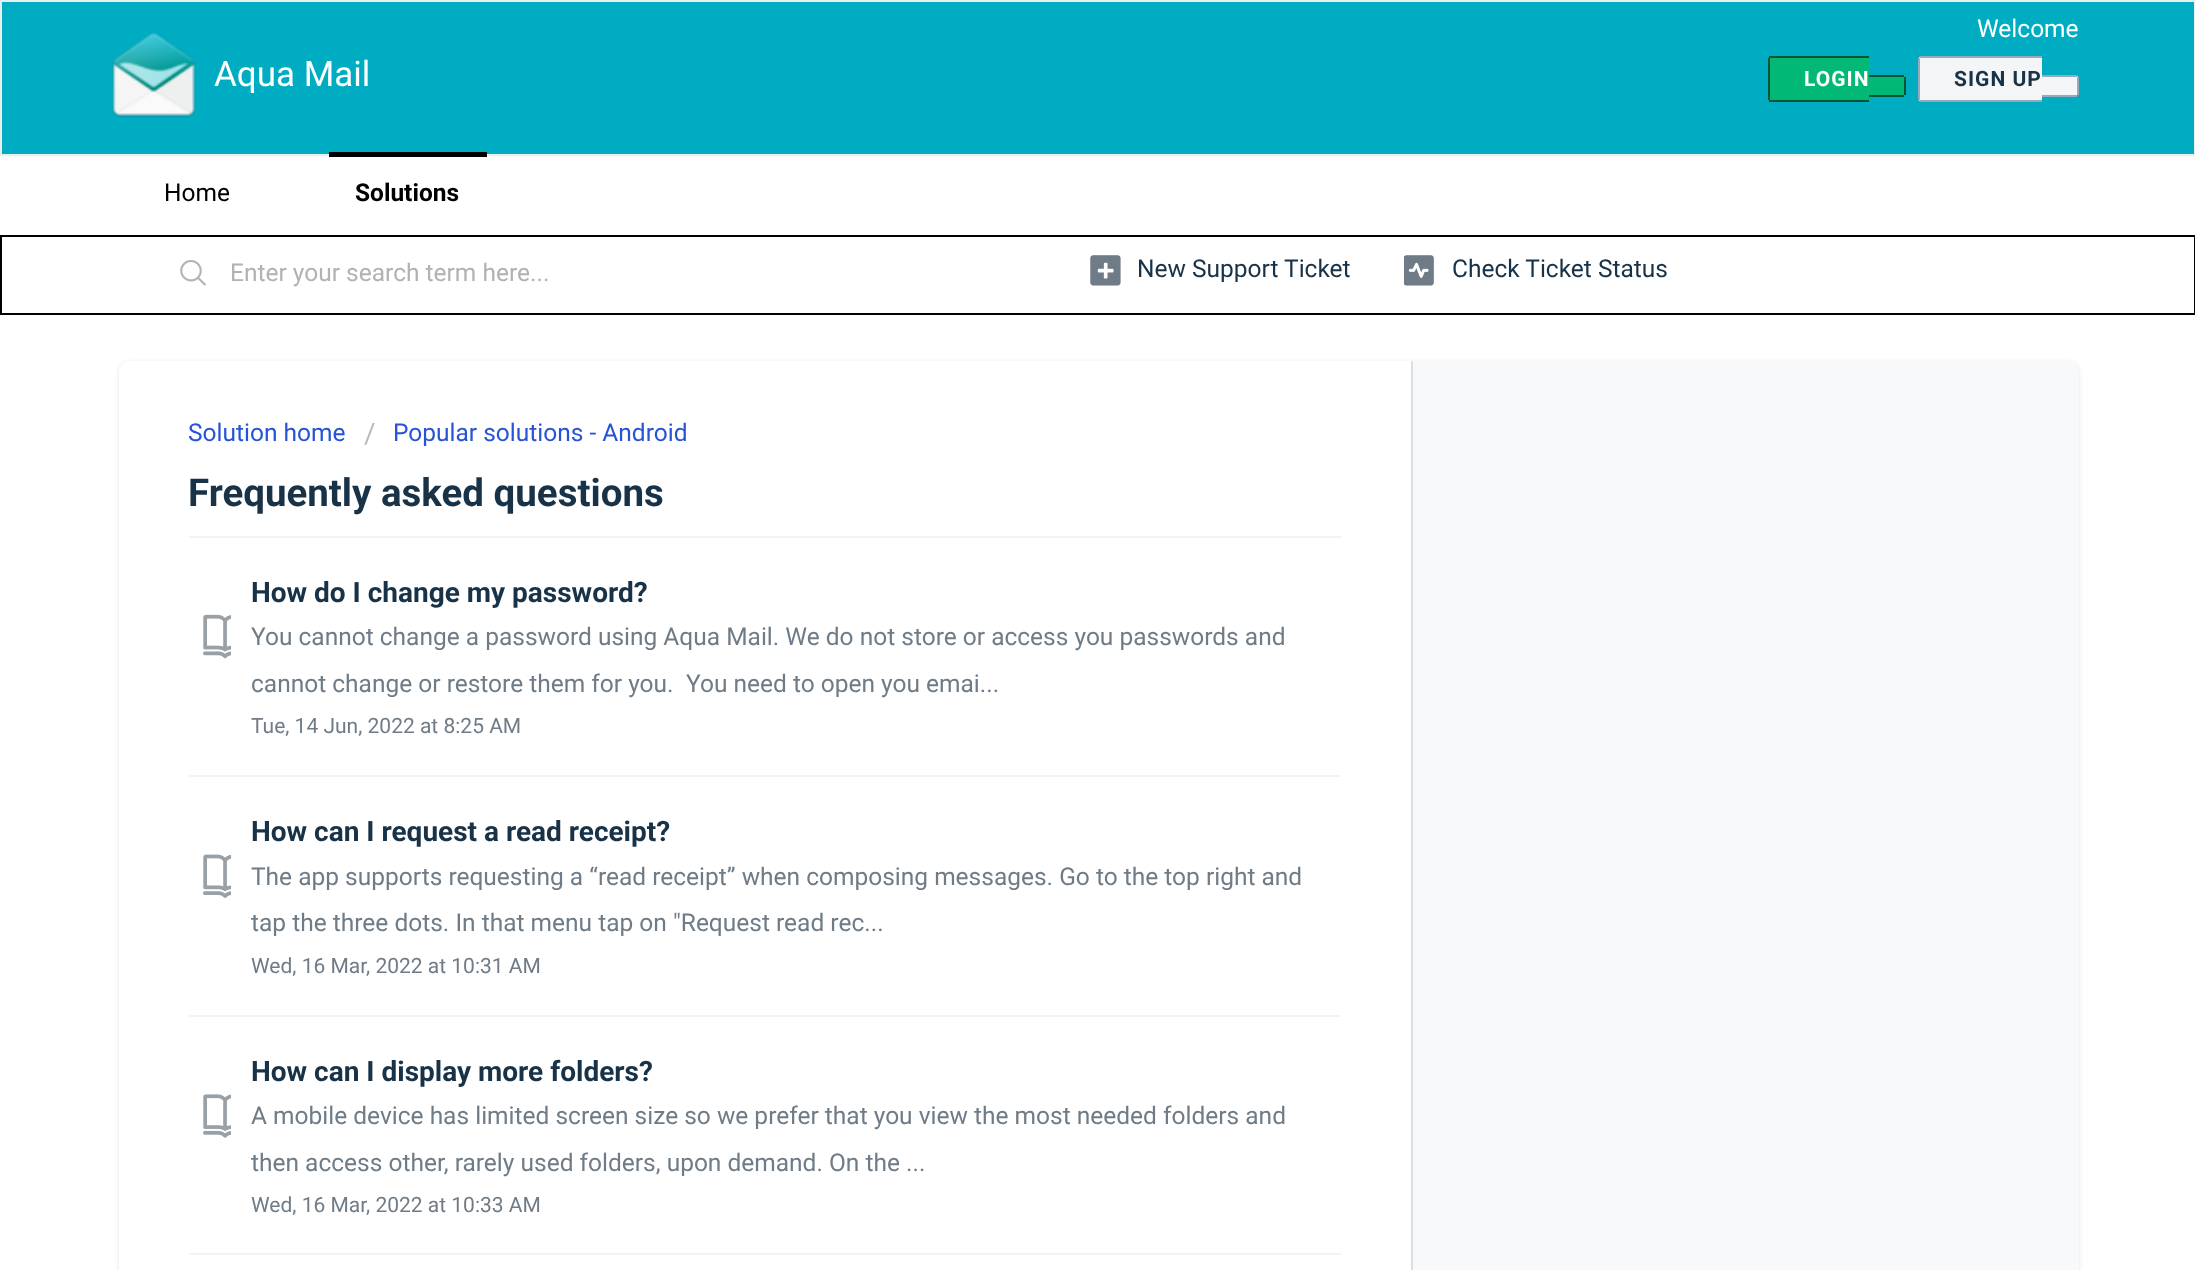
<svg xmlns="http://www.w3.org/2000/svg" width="2195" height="1270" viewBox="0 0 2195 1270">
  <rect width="100%" height="100%" fill="rgb(255,255,255)"/>
  <rect x="1" y="1" width="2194" height="154" fill="rgb(0,172,193)" stroke="rgb(235,238,240)" stroke-width="2"/>
  <image x="112" y="33" width="84" height="85" href="pic1.png"/>
  <text x="214" y="86" font-family="Roboto" font-size="35" fill="rgb(255,255,255)">Aqua Mail</text>
  <text x="1977" y="37" font-family="Roboto" font-size="24.5" fill="rgb(255,255,255)">Welcome</text>
  <path d="M1772 56H1869V102H1772C1770 102 1768 100 1768 98V60C1768 58 1770 56 1772 56Z" fill="rgb(2,184,117)"/>
  <text x="1804" y="86" font-family="Roboto" font-size="21" font-weight="bold" letter-spacing="1" fill="rgb(255,255,255)">LOGIN</text>
  <rect x="1769" y="56" width="100" height="2" fill="rgb(1,83,53)"/>
  <rect x="1769" y="100" width="100" height="2" fill="rgb(1,83,53)"/>
  <rect x="1768" y="58" width="2" height="42" fill="rgb(1,83,53)"/>
  <path d="M1869 75H1902C1904 75 1906 77 1906 79V92C1906 94 1904 96 1902 96H1869Z" fill="rgb(2,184,117)"/>
  <rect x="1869" y="75" width="35" height="2" fill="rgb(1,83,53)"/>
  <rect x="1904" y="77" width="2" height="18" fill="rgb(1,83,53)"/>
  <rect x="1869" y="95" width="35" height="2" fill="rgb(1,83,53)"/>
  <path d="M1922 56H2042V102H1922C1920 102 1918 100 1918 98V60C1918 58 1920 56 1922 56Z" fill="rgb(243,245,247)"/>
  <text x="1954" y="86" font-family="Roboto" font-size="21" font-weight="bold" letter-spacing="1" fill="rgb(24,50,71)">SIGN UP</text>
  <rect x="1920" y="56" width="122" height="2" fill="rgb(151,169,186)"/>
  <rect x="1920" y="100" width="122" height="2" fill="rgb(151,169,186)"/>
  <rect x="1918" y="58" width="2" height="42" fill="rgb(151,169,186)"/>
  <path d="M2042 75H2075C2077 75 2079 77 2079 79V92C2079 94 2077 96 2075 96H2042Z" fill="rgb(243,245,247)"/>
  <rect x="2042" y="75" width="35" height="2" fill="rgb(151,169,186)"/>
  <rect x="2077" y="77" width="2" height="18" fill="rgb(151,169,186)"/>
  <rect x="2042" y="95" width="35" height="2" fill="rgb(151,169,186)"/>
  <text x="164" y="201" font-family="Roboto" font-size="24.5" fill="rgb(0,0,0)">Home</text>
  <rect x="329" y="152" width="158" height="5" fill="rgb(0,0,0)"/>
  <text x="355" y="201" font-family="Roboto" font-size="24.5" font-weight="bold" fill="rgb(0,0,0)">Solutions</text>
  <rect x="1" y="236" width="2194" height="78" fill="none" stroke="rgb(0,0,0)" stroke-width="2"/>
  <image x="180" y="260" width="26" height="26" href="pic2.png"/>
  <text x="230" y="281" font-family="Roboto" font-size="24.5" fill="rgb(178,178,178)">Enter your search term here...</text>
  <image x="1090" y="255" width="31" height="31" href="pic3.png"/>
  <text x="1137" y="277" font-family="Roboto" font-size="24.5" fill="rgb(24,50,71)">New Support Ticket</text>
  <image x="1404" y="255" width="30" height="31" href="pic4.png"/>
  <text x="1452" y="277" font-family="Roboto" font-size="24.5" fill="rgb(24,50,71)">Check Ticket Status</text>
  <rect x="119" y="362" width="1960" height="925" rx="11" fill="rgba(63,63,68,0.15)" filter="blur(2px)"/>
  <rect x="119" y="361" width="1960" height="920" rx="11" fill="rgb(248,249,250)"/>
  <path d="M130 361H1412V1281H130C124 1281 119 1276 119 1270V372C119 366 124 361 130 361Z" fill="rgb(255,255,255)"/>
  <rect x="1411" y="361" width="2" height="909" fill="rgb(218,223,227)"/>
  <text x="188" y="441" font-family="Roboto" font-size="24.5" fill="rgb(39,83,215)">Solution home</text>
  <text x="364" y="443" font-family="Roboto" font-size="28" fill="rgb(187,187,187)">/</text>
  <text x="393" y="441" font-family="Roboto" font-size="24.5" fill="rgb(39,83,215)">Popular solutions - Android</text>
  <text x="188" y="506" font-family="Roboto" font-size="38.5" font-weight="bold" fill="rgb(24,50,71)">Frequently asked questions</text>
  <rect x="189" y="536" width="1152" height="2" fill="rgb(243,243,243)"/>
  <text x="251" y="602" font-family="Roboto" font-size="28" font-weight="bold" fill="rgb(24,50,71)">How do I change my password?</text>
  <image x="203" y="614" width="28" height="45" href="pic5.png"/>
  <g font-family="Roboto" font-size="24.5" fill="rgb(111,124,135)">
    <text>
      <tspan x="251" y="645">You cannot change a password using Aqua Mail. We do not store or access you passwords and</tspan>
      <tspan x="251" y="692">cannot change or restore them for you.</tspan>
    </text>
    <text x="686" y="692">You need to open you emai...</text>
  </g>
  <text x="251" y="733" font-family="Roboto" font-size="21" fill="rgb(111,124,135)">Tue, 14 Jun, 2022 at 8:25 AM</text>
  <rect x="189" y="775" width="1152" height="2" fill="rgb(243,243,243)"/>
  <text x="251" y="841" font-family="Roboto" font-size="28" font-weight="bold" fill="rgb(24,50,71)">How can I request a read receipt?</text>
  <image x="203" y="854" width="28" height="44" href="pic6.png"/>
  <g font-family="Roboto" font-size="24.5" fill="rgb(111,124,135)">
    <text>
      <tspan x="251" y="885">The app supports requesting a “read receipt” when composing messages. Go to the top right and</tspan>
      <tspan x="251" y="931">tap the three dots. In that menu tap on "Request read rec...</tspan>
    </text>
  </g>
  <text x="251" y="973" font-family="Roboto" font-size="21" fill="rgb(111,124,135)">Wed, 16 Mar, 2022 at 10:31 AM</text>
  <rect x="189" y="1015" width="1152" height="2" fill="rgb(243,243,243)"/>
  <text x="251" y="1081" font-family="Roboto" font-size="28" font-weight="bold" fill="rgb(24,50,71)">How can I display more folders?</text>
  <image x="203" y="1094" width="28" height="44" href="pic7.png"/>
  <g font-family="Roboto" font-size="24.5" fill="rgb(111,124,135)">
    <text>
      <tspan x="251" y="1124">A mobile device has limited screen size so we prefer that you view the most needed folders and</tspan>
      <tspan x="251" y="1171">then access other, rarely used folders, upon demand. On the ...</tspan>
    </text>
  </g>
  <text x="251" y="1212" font-family="Roboto" font-size="21" fill="rgb(111,124,135)">Wed, 16 Mar, 2022 at 10:33 AM</text>
  <rect x="189" y="1253" width="1152" height="2" fill="rgb(243,243,243)"/>
</svg>
